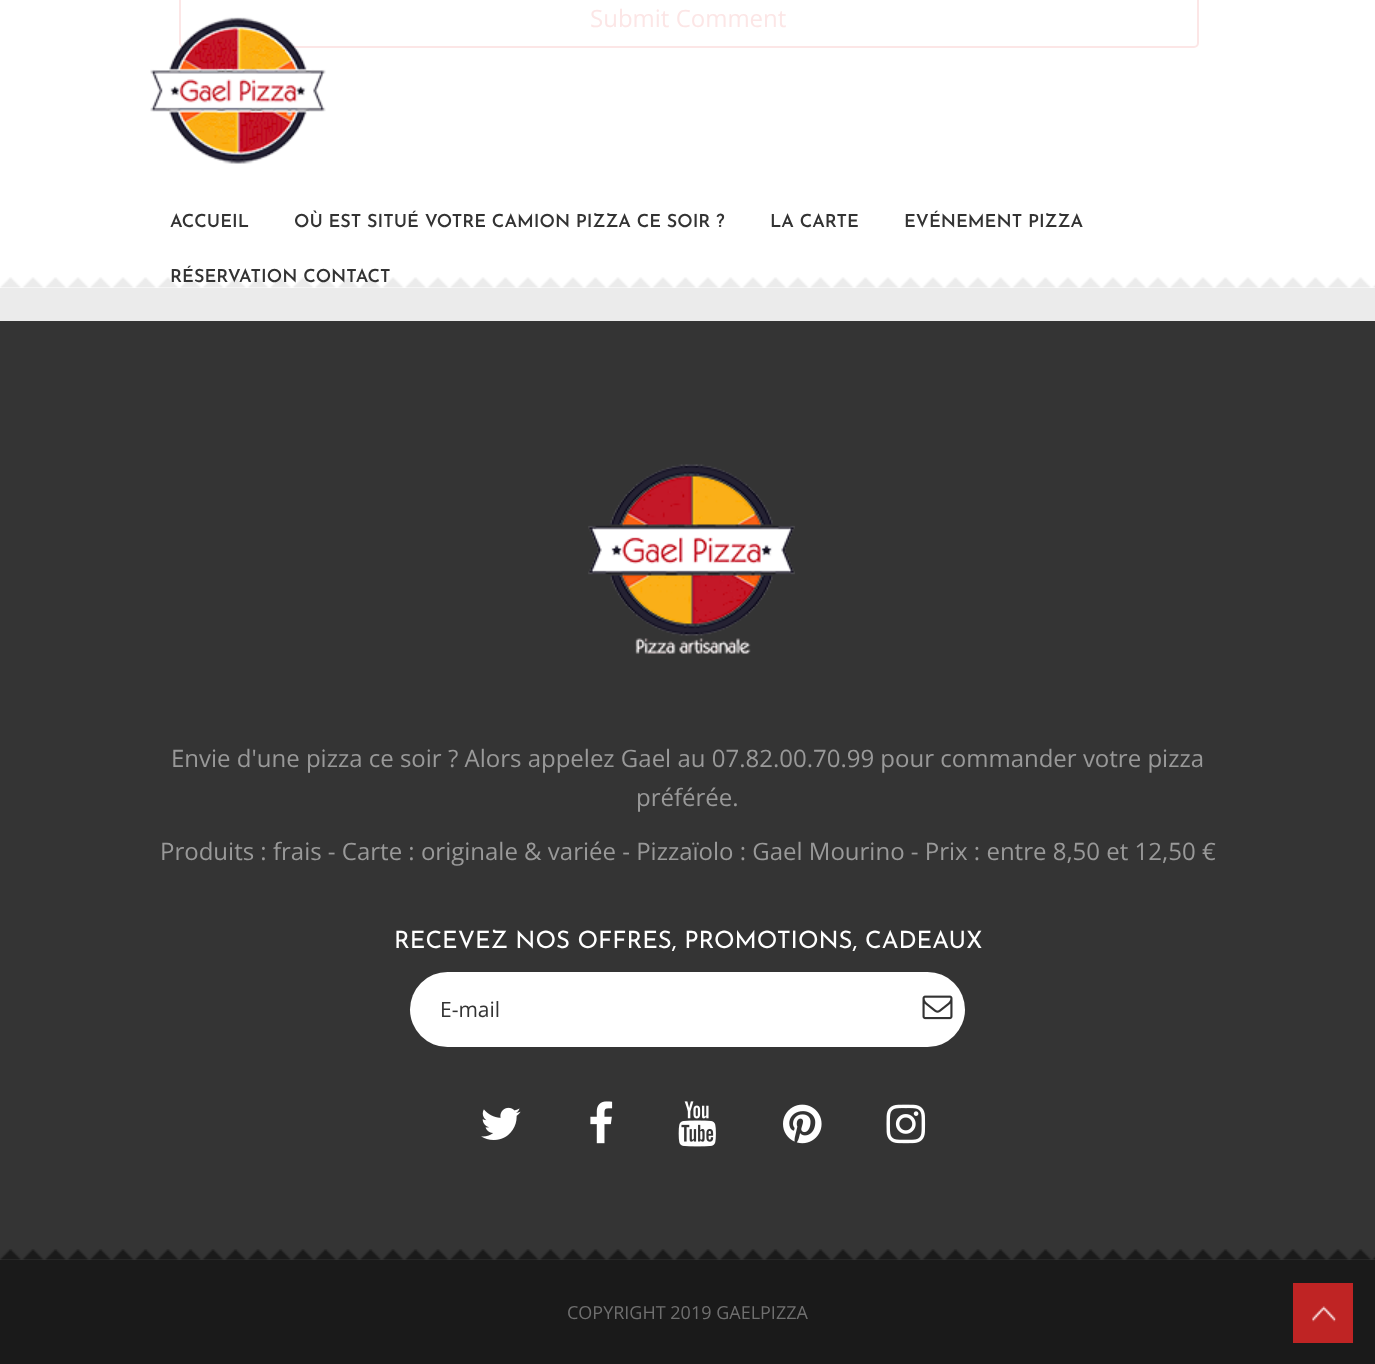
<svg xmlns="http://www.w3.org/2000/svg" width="1375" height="1364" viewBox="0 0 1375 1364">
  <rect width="100%" height="100%" fill="rgb(255,255,255)"/>
  <rect x="180" y="-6" width="1018" height="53" rx="4" fill="none" stroke="rgb(252,230,230)" stroke-width="2"/>
  <text x="590" y="27" font-family="Open Sans" font-size="24" fill="rgb(252,230,230)">Submit Comment</text>
  <image x="150" y="17" width="176" height="147" href="pic1.png"/>
  <g font-family="Josefin Sans" font-size="18" font-weight="600" fill="rgb(51,51,51)">
    <text x="170" y="227">ACCUEIL</text>
    <text x="294" y="227">OÙ EST SITUÉ VOTRE CAMION PIZZA CE SOIR ?</text>
    <text x="770" y="227">LA CARTE</text>
    <text x="904" y="227">EVÉNEMENT PIZZA</text>
  </g>
  <image x="0" y="277" width="1375" height="11" href="pic2.png"/>
  <text x="170" y="282" font-family="Josefin Sans" font-size="18" font-weight="600" fill="rgb(51,51,51)">RÉSERVATION CONTACT</text>
  <rect x="0" y="321" width="1375" height="939" fill="rgb(52,52,52)"/>
  <rect x="0" y="288" width="1375" height="33" fill="rgb(235,235,235)"/>
  <image x="588" y="464" width="207" height="190" href="pic3.png"/>
  <g font-family="Open Sans" font-size="24" fill="rgb(153,153,153)">
    <text x="171" y="767">Envie d'une pizza ce soir ? Alors appelez Gael au 07.82.00.70.99 pour commander votre pizza</text>
    <text x="636" y="806">préférée.</text>
    <text x="160" y="860">Produits : frais - Carte : originale &amp; variée - Pizzaïolo : Gael Mourino - Prix : entre 8,50 et 12,50 €</text>
  </g>
  <text x="394" y="948" font-family="Josefin Sans" font-size="24" fill="rgb(255,255,255)">RECEVEZ NOS OFFRES, PROMOTIONS, CADEAUX</text>
  <rect x="410" y="972" width="555" height="75" rx="37.5" fill="rgb(255,255,255)"/>
  <text x="440" y="1017" font-family="Open Sans" font-size="21" fill="rgb(51,51,51)">E-mail</text>
  <image x="922" y="995" width="31" height="25" href="pic4.png"/>
  <image x="481" y="1107" width="40" height="33" href="pic5.png"/>
  <image x="590" y="1101" width="23" height="43" href="pic6.png"/>
  <image x="678" y="1101" width="38" height="46" href="pic7.png"/>
  <image x="783" y="1104" width="39" height="40" href="pic8.png"/>
  <image x="886" y="1104" width="40" height="40" href="pic9.png"/>
  <rect x="0" y="1260" width="1375" height="104" fill="rgb(26,26,26)"/>
  <image x="0" y="1249" width="1375" height="11" href="pic10.png"/>
  <text x="567" y="1319" font-family="Open Sans" font-size="18" fill="rgb(111,111,111)">COPYRIGHT 2019 GAELPIZZA</text>
  <rect x="1293" y="1283" width="60" height="60" fill="rgb(191,36,36)"/>
  <image x="1312" y="1306" width="24" height="16" href="pic11.png"/>
</svg>
